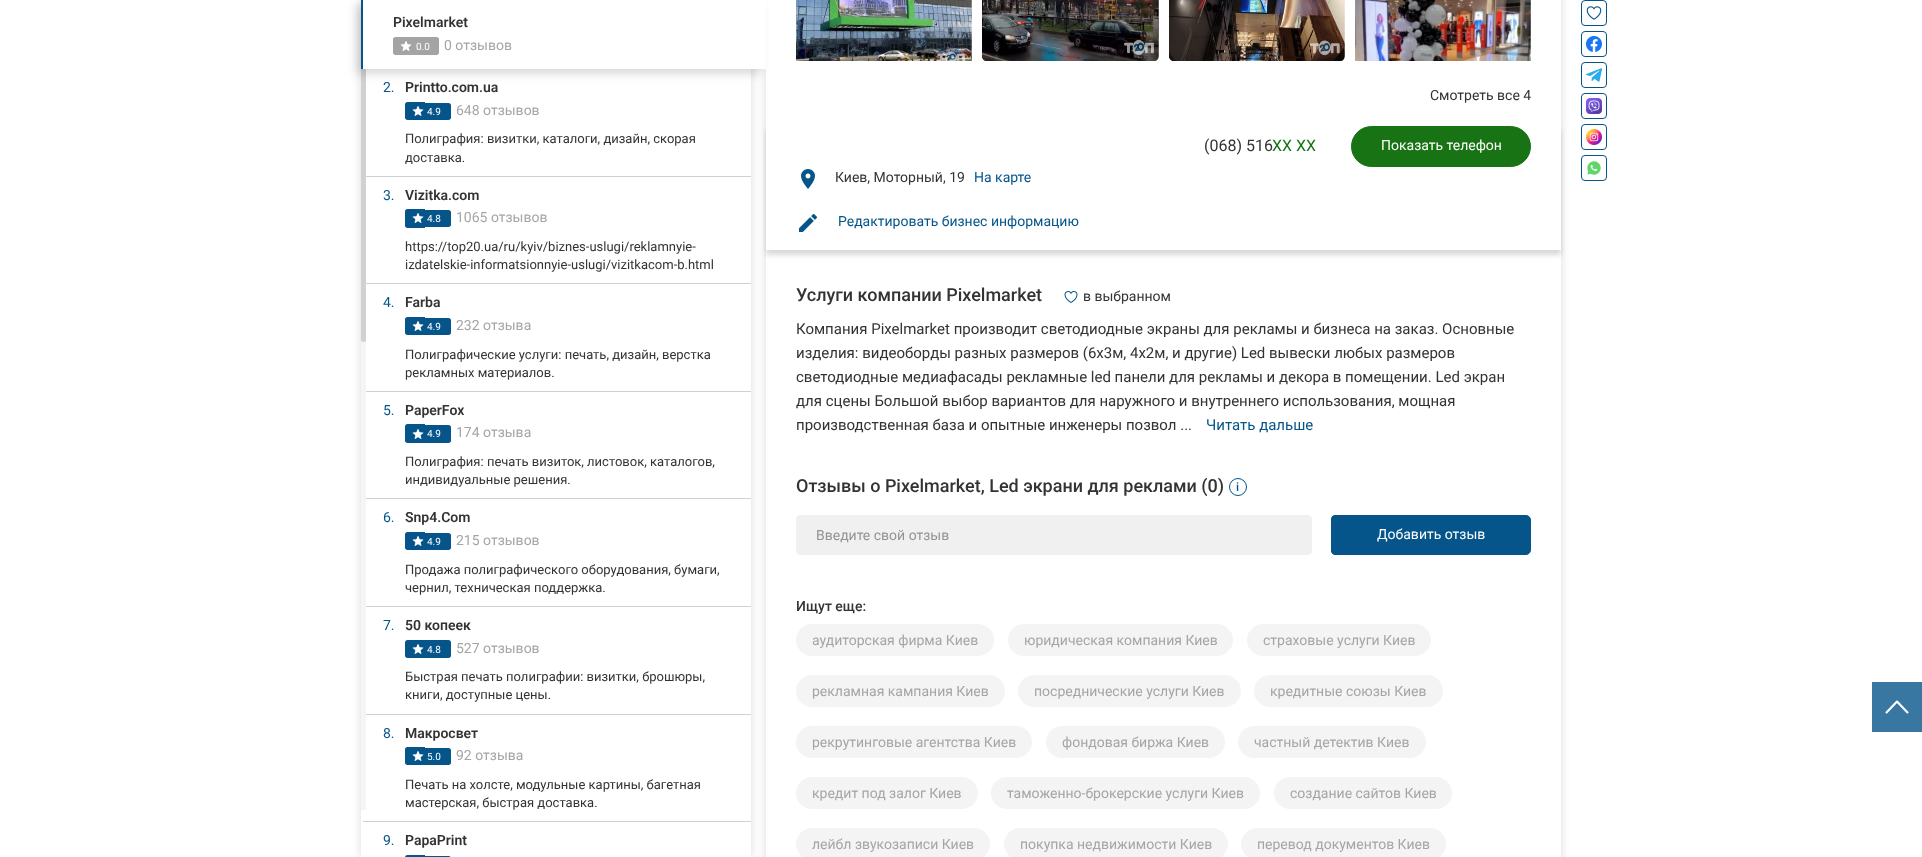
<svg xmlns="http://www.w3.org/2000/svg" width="1922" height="857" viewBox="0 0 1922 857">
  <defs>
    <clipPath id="clip1"><path d="M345 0H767V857H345ZM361 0H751V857H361Z" clip-rule="evenodd"/></clipPath>
    <clipPath id="clip2"><path d="M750 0H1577V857H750ZM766-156H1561V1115H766Z" clip-rule="evenodd"/></clipPath>
    <clipPath id="clip3"><rect x="405" y="78" width="326" height="89"/></clipPath>
    <clipPath id="clip4"><path d="M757 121H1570V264H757ZM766 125H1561V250H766Z" clip-rule="evenodd"/></clipPath>
  </defs>
  <rect width="100%" height="100%" fill="rgb(255,255,255)"/>
  <g clip-path="url(#clip1)">
    <rect x="361" y="0" width="390" height="857" fill="rgba(0,0,0,0.15)" filter="blur(5px)"/>
  </g>
  <g clip-path="url(#clip2)">
    <rect x="766" y="-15" width="795" height="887" fill="rgba(0,0,0,0.15)" filter="blur(5px)"/>
  </g>
  <rect x="363" y="176" width="388" height="1" fill="rgb(209,209,209)"/>
  <rect x="363" y="283" width="388" height="1" fill="rgb(209,209,209)"/>
  <rect x="363" y="391" width="388" height="1" fill="rgb(209,209,209)"/>
  <rect x="363" y="498" width="388" height="1" fill="rgb(209,209,209)"/>
  <rect x="363" y="606" width="388" height="1" fill="rgb(209,209,209)"/>
  <rect x="363" y="714" width="388" height="1" fill="rgb(209,209,209)"/>
  <rect x="361" y="68" width="5" height="742" fill="rgb(245,245,245)"/>
  <rect x="361" y="68" width="5" height="274" rx="2.5" fill="rgb(209,209,209)"/>
  <rect x="356" y="5" width="405" height="69" fill="rgba(0,0,0,0.15)" filter="blur(5px)"/>
  <rect x="363" y="0" width="403" height="69" fill="rgb(255,255,255)"/>
  <rect x="361" y="0" width="2" height="69" fill="rgb(5,85,138)"/>
  <text x="393" y="27" font-family="Roboto" font-size="14" font-weight="600" fill="rgb(51,51,51)">Pixelmarket</text>
  <path d="M395.5 37H413V55H395.5C394 55 393 54 393 52.5V39.5C393 38 394 37 395.5 37Z" fill="rgb(164,164,164)"/>
  <image x="400" y="41" width="12" height="10" href="pic1.png"/>
  <rect x="413" y="37" width="17" height="18" fill="rgb(164,164,164)"/>
  <text x="416" y="50" font-family="Roboto" font-size="10" fill="rgb(255,255,255)">0.0</text>
  <path d="M430 37H436.5C438 37 439 38 439 39.5V52.5C439 54 438 55 436.5 55H430Z" fill="rgb(164,164,164)"/>
  <text x="444" y="50" font-family="Roboto" font-size="14" fill="rgb(165,165,165)">0 отзывов</text>
  <text x="383" y="92" font-family="Roboto" font-size="14" fill="rgb(5,85,138)">2.</text>
  <text x="405" y="92" font-family="Roboto" font-size="14" font-weight="600" fill="rgb(51,51,51)">Printto.com.ua</text>
  <path d="M407.5 102H425V120H407.5C406 120 405 119 405 117.5V104.5C405 103 406 102 407.5 102Z" fill="rgb(5,85,138)"/>
  <image x="412" y="106" width="12" height="10" href="pic2.png"/>
  <rect x="425" y="103" width="17" height="17" fill="rgb(5,85,138)"/>
  <text x="427" y="115" font-family="Roboto" font-size="10" fill="rgb(255,255,255)">4.9</text>
  <path d="M442 103H448.5C450 103 451 104 451 105.5V117.5C451 119 450 120 448.5 120H442Z" fill="rgb(5,85,138)"/>
  <text x="456" y="115" font-family="Roboto" font-size="14" fill="rgb(165,165,165)">648 отзывов</text>
  <text x="405" y="143" font-family="Roboto" font-size="13" fill="rgb(51,51,51)">Полиграфия: визитки, каталоги, дизайн, скорая</text>
  <g clip-path="url(#clip3)">
    <text x="405" y="162" font-family="Roboto" font-size="13" fill="rgb(51,51,51)">доставка.</text>
  </g>
  <text x="383" y="200" font-family="Roboto" font-size="14" fill="rgb(5,85,138)">3.</text>
  <text x="405" y="200" font-family="Roboto" font-size="14" font-weight="600" fill="rgb(51,51,51)">Vizitka.com</text>
  <path d="M407.5 209H425V228H407.5C406 228 405 227 405 225.5V211.5C405 210 406 209 407.5 209Z" fill="rgb(5,85,138)"/>
  <image x="412" y="213" width="12" height="10" href="pic2.png"/>
  <rect x="425" y="210" width="17" height="17" fill="rgb(5,85,138)"/>
  <text x="427" y="222" font-family="Roboto" font-size="10" fill="rgb(255,255,255)">4.8</text>
  <path d="M442 210H448.5C450 210 451 211 451 212.5V224.5C451 226 450 227 448.5 227H442Z" fill="rgb(5,85,138)"/>
  <text x="456" y="222" font-family="Roboto" font-size="14" fill="rgb(165,165,165)">1065 отзывов</text>
  <g font-family="Roboto" font-size="13" fill="rgb(51,51,51)">
    <text>
      <tspan x="405" y="251">https://top20.ua/ru/kyiv/biznes-uslugi/reklamnyie-</tspan>
      <tspan x="405" y="269">izdatelskie-informatsionnyie-uslugi/vizitkacom-b.html</tspan>
    </text>
  </g>
  <text x="383" y="307" font-family="Roboto" font-size="14" fill="rgb(5,85,138)">4.</text>
  <text x="405" y="307" font-family="Roboto" font-size="14" font-weight="600" fill="rgb(51,51,51)">Farba</text>
  <path d="M407.5 317H425V335H407.5C406 335 405 334 405 332.5V319.5C405 318 406 317 407.5 317Z" fill="rgb(5,85,138)"/>
  <image x="412" y="321" width="12" height="10" href="pic2.png"/>
  <rect x="425" y="318" width="17" height="17" fill="rgb(5,85,138)"/>
  <text x="427" y="330" font-family="Roboto" font-size="10" fill="rgb(255,255,255)">4.9</text>
  <path d="M442 318H448.5C450 318 451 319 451 320.5V332.5C451 334 450 335 448.5 335H442Z" fill="rgb(5,85,138)"/>
  <text x="456" y="330" font-family="Roboto" font-size="14" fill="rgb(165,165,165)">232 отзыва</text>
  <g font-family="Roboto" font-size="13" fill="rgb(51,51,51)">
    <text>
      <tspan x="405" y="359">Полиграфические услуги: печать, дизайн, верстка</tspan>
      <tspan x="405" y="377">рекламных материалов.</tspan>
    </text>
  </g>
  <text x="383" y="415" font-family="Roboto" font-size="14" fill="rgb(5,85,138)">5.</text>
  <text x="405" y="415" font-family="Roboto" font-size="14" font-weight="600" fill="rgb(51,51,51)">PaperFox</text>
  <path d="M407.5 424H425V443H407.5C406 443 405 442 405 440.5V426.5C405 425 406 424 407.5 424Z" fill="rgb(5,85,138)"/>
  <image x="412" y="429" width="12" height="10" href="pic2.png"/>
  <rect x="425" y="425" width="17" height="18" fill="rgb(5,85,138)"/>
  <text x="427" y="437" font-family="Roboto" font-size="10" fill="rgb(255,255,255)">4.9</text>
  <path d="M442 425H448.5C450 425 451 426 451 427.5V440.5C451 442 450 443 448.5 443H442Z" fill="rgb(5,85,138)"/>
  <text x="456" y="437" font-family="Roboto" font-size="14" fill="rgb(165,165,165)">174 отзыва</text>
  <g font-family="Roboto" font-size="13" fill="rgb(51,51,51)">
    <text>
      <tspan x="405" y="466">Полиграфия: печать визиток, листовок, каталогов,</tspan>
      <tspan x="405" y="484">индивидуальные решения.</tspan>
    </text>
  </g>
  <text x="383" y="522" font-family="Roboto" font-size="14" fill="rgb(5,85,138)">6.</text>
  <text x="405" y="522" font-family="Roboto" font-size="14" font-weight="600" fill="rgb(51,51,51)">Snp4.Com</text>
  <path d="M407.5 532H425V550H407.5C406 550 405 549 405 547.5V534.5C405 533 406 532 407.5 532Z" fill="rgb(5,85,138)"/>
  <image x="412" y="536" width="12" height="10" href="pic2.png"/>
  <rect x="425" y="533" width="17" height="17" fill="rgb(5,85,138)"/>
  <text x="427" y="545" font-family="Roboto" font-size="10" fill="rgb(255,255,255)">4.9</text>
  <path d="M442 533H448.5C450 533 451 534 451 535.5V547.5C451 549 450 550 448.5 550H442Z" fill="rgb(5,85,138)"/>
  <text x="456" y="545" font-family="Roboto" font-size="14" fill="rgb(165,165,165)">215 отзывов</text>
  <g font-family="Roboto" font-size="13" fill="rgb(51,51,51)">
    <text>
      <tspan x="405" y="574">Продажа полиграфического оборудования, бумаги,</tspan>
      <tspan x="405" y="592">чернил, техническая поддержка.</tspan>
    </text>
  </g>
  <text x="383" y="630" font-family="Roboto" font-size="14" fill="rgb(5,85,138)">7.</text>
  <text x="405" y="630" font-family="Roboto" font-size="14" font-weight="600" fill="rgb(51,51,51)">50 копеек</text>
  <path d="M407.5 640H425V658H407.5C406 658 405 657 405 655.5V642.5C405 641 406 640 407.5 640Z" fill="rgb(5,85,138)"/>
  <image x="412" y="644" width="12" height="10" href="pic2.png"/>
  <rect x="425" y="640" width="17" height="18" fill="rgb(5,85,138)"/>
  <text x="427" y="653" font-family="Roboto" font-size="10" fill="rgb(255,255,255)">4.8</text>
  <path d="M442 640H448.5C450 640 451 641 451 642.5V655.5C451 657 450 658 448.5 658H442Z" fill="rgb(5,85,138)"/>
  <text x="456" y="653" font-family="Roboto" font-size="14" fill="rgb(165,165,165)">527 отзывов</text>
  <g font-family="Roboto" font-size="13" fill="rgb(51,51,51)">
    <text>
      <tspan x="405" y="681">Быстрая печать полиграфии: визитки, брошюры,</tspan>
      <tspan x="405" y="699">книги, доступные цены.</tspan>
    </text>
  </g>
  <text x="383" y="738" font-family="Roboto" font-size="14" fill="rgb(5,85,138)">8.</text>
  <text x="405" y="738" font-family="Roboto" font-size="14" font-weight="600" fill="rgb(51,51,51)">Макросвет</text>
  <path d="M407.5 747H425V765H407.5C406 765 405 764 405 762.5V749.5C405 748 406 747 407.5 747Z" fill="rgb(5,85,138)"/>
  <image x="412" y="751" width="12" height="10" href="pic2.png"/>
  <rect x="425" y="748" width="17" height="17" fill="rgb(5,85,138)"/>
  <text x="427" y="760" font-family="Roboto" font-size="10" fill="rgb(255,255,255)">5.0</text>
  <path d="M442 748H448.5C450 748 451 749 451 750.5V762.5C451 764 450 765 448.5 765H442Z" fill="rgb(5,85,138)"/>
  <text x="456" y="760" font-family="Roboto" font-size="14" fill="rgb(165,165,165)">92 отзыва</text>
  <g font-family="Roboto" font-size="13" fill="rgb(51,51,51)">
    <text>
      <tspan x="405" y="789">Печать на холсте, модульные картины, багетная</tspan>
      <tspan x="405" y="807">мастерская, быстрая доставка.</tspan>
    </text>
  </g>
  <rect x="363" y="821" width="388" height="1" fill="rgb(209,209,209)"/>
  <text x="383" y="845" font-family="Roboto" font-size="14" fill="rgb(5,85,138)">9.</text>
  <text x="405" y="845" font-family="Roboto" font-size="14" font-weight="600" fill="rgb(51,51,51)">PapaPrint</text>
  <path d="M407.5 855H425V857H405V857.5C405 856 406 855 407.5 855Z" fill="rgb(5,85,138)"/>
  <rect x="425" y="856" width="17" height="1" fill="rgb(5,85,138)"/>
  <path d="M442 856H448.5C450 856 451 857 451 858.5V857H442Z" fill="rgb(5,85,138)"/>
  <image x="796" y="0" width="176" height="61" href="pic3.png"/>
  <image x="982" y="0" width="177" height="61" href="pic4.png"/>
  <image x="1169" y="0" width="176" height="61" href="pic5.png"/>
  <image x="1355" y="0" width="176" height="61" href="pic6.png"/>
  <text x="1430" y="100" font-family="Roboto" font-size="14" fill="rgb(51,51,51)">Смотреть все 4</text>
  <g clip-path="url(#clip4)">
    <rect x="766" y="130" width="795" height="125" fill="rgba(0,0,0,0.15)" filter="blur(2.5px)"/>
  </g>
  <text x="1204" y="151" font-family="Roboto" font-size="16" fill="rgb(51,51,51)">(068) 516</text>
  <text x="1272" y="151" font-family="Roboto" font-size="16" fill="rgb(23,115,19)">XX XX</text>
  <rect x="1351.5" y="126.5" width="179" height="40" rx="20" fill="rgb(23,115,19)" stroke="rgb(23,115,19)"/>
  <text x="1381" y="150" font-family="Roboto" font-size="14" fill="rgb(255,255,255)">Показать телефон</text>
  <image x="801" y="169" width="14" height="20" href="pic7.png"/>
  <text x="835" y="182" font-family="Roboto" font-size="14" fill="rgb(51,51,51)">Киев, Моторный, 19</text>
  <text x="974" y="182" font-family="Roboto" font-size="14" fill="rgb(5,85,138)">На карте</text>
  <image x="799" y="214" width="18" height="18" href="pic8.png"/>
  <text x="838" y="226" font-family="Roboto" font-size="14" fill="rgb(5,85,138)">Редактировать бизнес информацию</text>
  <text x="796" y="301" font-family="Roboto" font-size="18" font-weight="500" fill="rgb(51,51,51)">Услуги компании Pixelmarket</text>
  <image x="1064" y="291" width="14" height="12" href="pic9.png"/>
  <text x="1083" y="301" font-family="Roboto" font-size="14" fill="rgb(51,51,51)">в выбранном</text>
  <g font-family="Roboto" font-size="15" fill="rgb(51,51,51)">
    <text>
      <tspan x="796" y="334">Компания Pixelmarket производит светодиодные экраны для рекламы и бизнеса на заказ. Основные</tspan>
      <tspan x="796" y="358">изделия: видеоборды разных размеров (6х3м, 4х2м, и другие) Led вывески любых размеров</tspan>
      <tspan x="796" y="382">светодиодные медиафасады рекламные led панели для рекламы и декора в помещении. Led экран</tspan>
      <tspan x="796" y="406">для сцены Большой выбор вариантов для наружного и внутреннего использования, мощная</tspan>
      <tspan x="796" y="430">производственная база и опытные инженеры позвол ...</tspan>
    </text>
  </g>
  <text x="1206" y="430" font-family="Roboto" font-size="15" fill="rgb(5,85,138)">Читать дальше</text>
  <rect x="1581.5" y="0.5" width="25" height="25" rx="3.5" fill="none" stroke="rgb(5,85,138)"/>
  <image x="1586" y="6" width="16" height="14" href="pic10.png"/>
  <rect x="1581.5" y="31.5" width="25" height="25" rx="3.5" fill="none" stroke="rgb(5,85,138)"/>
  <image x="1586" y="36" width="16" height="16" href="pic11.png"/>
  <rect x="1581.5" y="62.5" width="25" height="25" rx="3.5" fill="none" stroke="rgb(5,85,138)"/>
  <image x="1586" y="68" width="16" height="14" href="pic12.png"/>
  <rect x="1581.5" y="93.5" width="25" height="25" rx="3.5" fill="none" stroke="rgb(5,85,138)"/>
  <image x="1586" y="98" width="16" height="16" href="pic13.png"/>
  <rect x="1581.5" y="124.5" width="25" height="25" rx="3.5" fill="none" stroke="rgb(5,85,138)"/>
  <image x="1586" y="129" width="16" height="16" href="pic14.png"/>
  <rect x="1581.5" y="155.5" width="25" height="25" rx="3.5" fill="none" stroke="rgb(5,85,138)"/>
  <image x="1587" y="161" width="14" height="14" href="pic15.png"/>
  <text x="796" y="492" font-family="Roboto" font-size="18" font-weight="500" fill="rgb(51,51,51)">Отзывы о Pixelmarket, Led экрани для реклами (0)</text>
  <circle cx="1238" cy="487" r="8.5" fill="none" stroke="rgb(5,85,138)"/>
  <text x="1236" y="491" font-family="Roboto" font-size="12" font-weight="500" fill="rgb(5,85,138)">i</text>
  <path d="M801 515H1308C1310 515 1312 517 1312 519V551C1312 553 1310 555 1308 555H801C798 555 796 553 796 550V520C796 517 798 515 801 515Z" fill="rgb(240,240,240)"/>
  <text x="816" y="540" font-family="Roboto" font-size="14" fill="rgb(147,147,147)">Введите свой отзыв</text>
  <path d="M1335 515.5H1526C1528.5 515.5 1530.5 517.5 1530.5 520V550C1530.5 552.5 1528.5 554.5 1526 554.5H1335C1333 554.5 1331.5 553 1331.5 551V519C1331.5 517 1333 515.5 1335 515.5Z" fill="rgb(5,85,138)" stroke="rgb(5,85,138)"/>
  <text x="1377" y="539" font-family="Roboto" font-size="14" fill="rgb(255,255,255)">Добавить отзыв</text>
  <text x="796" y="611" font-family="Roboto" font-size="14" font-weight="500" fill="rgb(51,51,51)">Ищут еще:</text>
  <rect x="796" y="624" width="198" height="32" rx="16" fill="rgb(244,244,244)"/>
  <text x="812" y="645" font-family="Roboto" font-size="14" fill="rgb(165,165,165)">аудиторская фирма Киев</text>
  <rect x="1008" y="624" width="225" height="32" rx="16" fill="rgb(244,244,244)"/>
  <text x="1024" y="645" font-family="Roboto" font-size="14" fill="rgb(165,165,165)">юридическая компания Киев</text>
  <rect x="1247" y="624" width="184" height="32" rx="16" fill="rgb(244,244,244)"/>
  <text x="1263" y="645" font-family="Roboto" font-size="14" fill="rgb(165,165,165)">страховые услуги Киев</text>
  <rect x="796" y="675" width="209" height="32" rx="16" fill="rgb(244,244,244)"/>
  <text x="812" y="696" font-family="Roboto" font-size="14" fill="rgb(165,165,165)">рекламная кампания Киев</text>
  <rect x="1018" y="675" width="223" height="32" rx="16" fill="rgb(244,244,244)"/>
  <text x="1034" y="696" font-family="Roboto" font-size="14" fill="rgb(165,165,165)">посреднические услуги Киев</text>
  <rect x="1254" y="675" width="189" height="32" rx="16" fill="rgb(244,244,244)"/>
  <text x="1270" y="696" font-family="Roboto" font-size="14" fill="rgb(165,165,165)">кредитные союзы Киев</text>
  <rect x="796" y="726" width="236" height="32" rx="16" fill="rgb(244,244,244)"/>
  <text x="812" y="747" font-family="Roboto" font-size="14" fill="rgb(165,165,165)">рекрутинговые агентства Киев</text>
  <rect x="1046" y="726" width="179" height="32" rx="16" fill="rgb(244,244,244)"/>
  <text x="1062" y="747" font-family="Roboto" font-size="14" fill="rgb(165,165,165)">фондовая биржа Киев</text>
  <rect x="1238" y="726" width="188" height="32" rx="16" fill="rgb(244,244,244)"/>
  <text x="1254" y="747" font-family="Roboto" font-size="14" fill="rgb(165,165,165)">частный детектив Киев</text>
  <rect x="796" y="777" width="182" height="32" rx="16" fill="rgb(244,244,244)"/>
  <text x="812" y="798" font-family="Roboto" font-size="14" fill="rgb(165,165,165)">кредит под залог Киев</text>
  <rect x="991" y="777" width="269" height="32" rx="16" fill="rgb(244,244,244)"/>
  <text x="1007" y="798" font-family="Roboto" font-size="14" fill="rgb(165,165,165)">таможенно-брокерские услуги Киев</text>
  <rect x="1274" y="777" width="178" height="32" rx="16" fill="rgb(244,244,244)"/>
  <text x="1290" y="798" font-family="Roboto" font-size="14" fill="rgb(165,165,165)">создание сайтов Киев</text>
  <rect x="796" y="828" width="194" height="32" rx="16" fill="rgb(244,244,244)"/>
  <text x="812" y="849" font-family="Roboto" font-size="14" fill="rgb(165,165,165)">лейбл звукозаписи Киев</text>
  <rect x="1004" y="828" width="224" height="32" rx="16" fill="rgb(244,244,244)"/>
  <text x="1020" y="849" font-family="Roboto" font-size="14" fill="rgb(165,165,165)">покупка недвижимости Киев</text>
  <rect x="1241" y="828" width="205" height="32" rx="16" fill="rgb(244,244,244)"/>
  <text x="1257" y="849" font-family="Roboto" font-size="14" fill="rgb(165,165,165)">перевод документов Киев</text>
  <rect x="1872" y="682" width="50" height="50" fill="rgb(55,119,161)"/>
  <path d="M1886.5 712.5L1897 701.5L1907.5 712.5" fill="none" stroke="rgb(255,255,255)" stroke-width="2.1" stroke-linecap="round" stroke-linejoin="round"/>
</svg>
